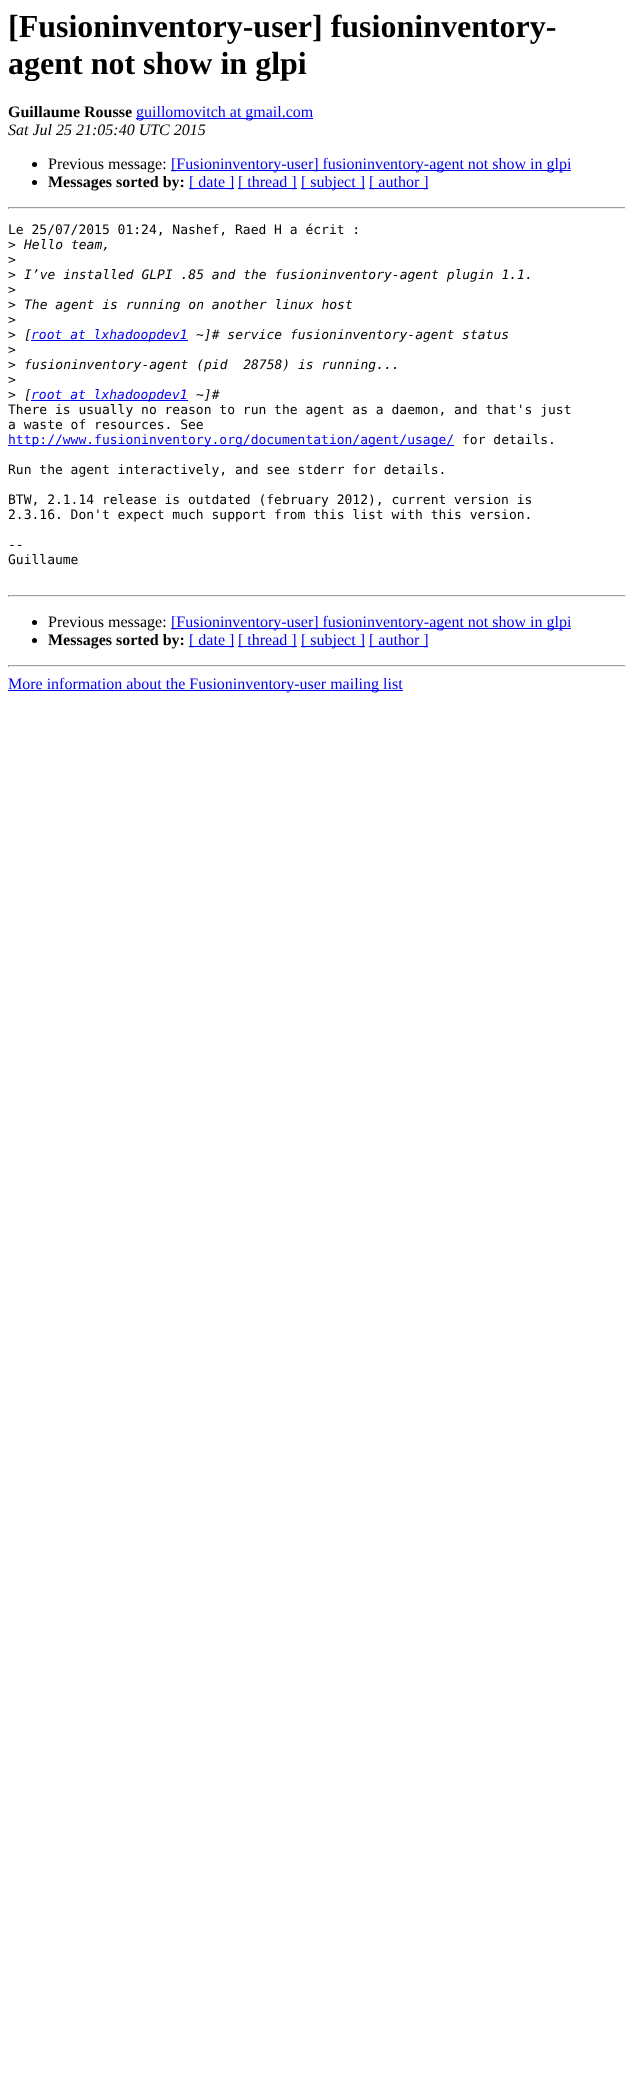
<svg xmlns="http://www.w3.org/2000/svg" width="634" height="2087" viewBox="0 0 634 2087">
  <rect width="100%" height="100%" fill="rgb(255,255,255)"/>
  <g font-family="Liberation Serif" font-size="32" font-weight="bold" fill="rgb(0,0,0)">
    <text>
      <tspan x="8" y="37">[Fusioninventory-user] fusioninventory-</tspan>
      <tspan x="8" y="74">agent not show in glpi</tspan>
    </text>
  </g>
  <text x="8" y="117" font-family="Liberation Serif" font-size="16" font-weight="bold" fill="rgb(0,0,0)">Guillaume Rousse</text>
  <rect x="136" y="118" width="177" height="1" fill="rgb(0,0,238)"/>
  <text x="136" y="117" font-family="Liberation Serif" font-size="16" fill="rgb(0,0,238)">guillomovitch at gmail.com</text>
  <text x="8" y="135" font-family="Liberation Serif" font-size="16" font-style="italic" fill="rgb(0,0,0)">Sat Jul 25 21:05:40 UTC 2015</text>
  <circle cx="34.5" cy="164.5" r="2.5" fill="rgb(0,0,0)"/>
  <text x="48" y="169" font-family="Liberation Serif" font-size="16" fill="rgb(0,0,0)">Previous message:</text>
  <rect x="171" y="170" width="400" height="1" fill="rgb(0,0,238)"/>
  <text x="171" y="169" font-family="Liberation Serif" font-size="16" fill="rgb(0,0,238)">[Fusioninventory-user] fusioninventory-agent not show in glpi</text>
  <circle cx="34.5" cy="182.5" r="2.5" fill="rgb(0,0,0)"/>
  <text x="48" y="187" font-family="Liberation Serif" font-size="16" font-weight="bold" fill="rgb(0,0,0)">Messages sorted by:</text>
  <rect x="189" y="188" width="45" height="1" fill="rgb(0,0,238)"/>
  <text x="189" y="187" font-family="Liberation Serif" font-size="16" fill="rgb(0,0,238)">[ date ]</text>
  <rect x="238" y="188" width="59" height="1" fill="rgb(0,0,238)"/>
  <text x="238" y="187" font-family="Liberation Serif" font-size="16" fill="rgb(0,0,238)">[ thread ]</text>
  <rect x="301" y="188" width="64" height="1" fill="rgb(0,0,238)"/>
  <text x="301" y="187" font-family="Liberation Serif" font-size="16" fill="rgb(0,0,238)">[ subject ]</text>
  <rect x="369" y="188" width="59" height="1" fill="rgb(0,0,238)"/>
  <text x="369" y="187" font-family="Liberation Serif" font-size="16" fill="rgb(0,0,238)">[ author ]</text>
  <rect x="8" y="207" width="618" height="1" fill="rgb(159,159,159)"/>
  <rect x="625" y="207" width="1" height="2" fill="rgb(238,238,238)"/>
  <rect x="8" y="208" width="618" height="1" fill="rgb(238,238,238)"/>
  <rect x="8" y="207" width="1" height="2" fill="rgb(159,159,159)"/>
  <g font-family="DejaVu Sans Mono" font-size="13" fill="rgb(0,0,0)">
    <text>
      <tspan x="8" y="234">Le 25/07/2015 01:24, Nashef, Raed H a écrit :</tspan>
      <tspan x="8" y="249">&gt;</tspan>
    </text>
  </g>
  <text x="24" y="249" font-family="DejaVu Sans Mono" font-size="13" font-style="italic" fill="rgb(0,0,0)">Hello team,</text>
  <g font-family="DejaVu Sans Mono" font-size="13" fill="rgb(0,0,0)">
    <text>
      <tspan x="8" y="264">&gt;</tspan>
      <tspan x="8" y="279">&gt;</tspan>
    </text>
  </g>
  <text x="24" y="279" font-family="DejaVu Sans Mono" font-size="13" font-style="italic" fill="rgb(0,0,0)">I’ve installed GLPI .85 and the fusioninventory-agent plugin 1.1.</text>
  <g font-family="DejaVu Sans Mono" font-size="13" fill="rgb(0,0,0)">
    <text>
      <tspan x="8" y="294">&gt;</tspan>
      <tspan x="8" y="309">&gt;</tspan>
    </text>
  </g>
  <text x="24" y="309" font-family="DejaVu Sans Mono" font-size="13" font-style="italic" fill="rgb(0,0,0)">The agent is running on another linux host</text>
  <g font-family="DejaVu Sans Mono" font-size="13" fill="rgb(0,0,0)">
    <text>
      <tspan x="8" y="324">&gt;</tspan>
      <tspan x="8" y="339">&gt;</tspan>
    </text>
  </g>
  <text x="24" y="339" font-family="DejaVu Sans Mono" font-size="13" font-style="italic" fill="rgb(0,0,0)">[</text>
  <rect x="31" y="340" width="157" height="1" fill="rgb(0,0,238)"/>
  <text x="31" y="339" font-family="DejaVu Sans Mono" font-size="13" font-style="italic" fill="rgb(0,0,238)">root at lxhadoopdev1</text>
  <text x="196" y="339" font-family="DejaVu Sans Mono" font-size="13" font-style="italic" fill="rgb(0,0,0)">~]# service fusioninventory-agent status</text>
  <g font-family="DejaVu Sans Mono" font-size="13" fill="rgb(0,0,0)">
    <text>
      <tspan x="8" y="354">&gt;</tspan>
      <tspan x="8" y="369">&gt;</tspan>
    </text>
  </g>
  <text x="24" y="369" font-family="DejaVu Sans Mono" font-size="13" font-style="italic" fill="rgb(0,0,0)" xml:space="preserve">fusioninventory-agent (pid  28758) is running...</text>
  <g font-family="DejaVu Sans Mono" font-size="13" fill="rgb(0,0,0)">
    <text>
      <tspan x="8" y="384">&gt;</tspan>
      <tspan x="8" y="399">&gt;</tspan>
    </text>
  </g>
  <text x="24" y="399" font-family="DejaVu Sans Mono" font-size="13" font-style="italic" fill="rgb(0,0,0)">[</text>
  <rect x="31" y="400" width="157" height="1" fill="rgb(0,0,238)"/>
  <text x="31" y="399" font-family="DejaVu Sans Mono" font-size="13" font-style="italic" fill="rgb(0,0,238)">root at lxhadoopdev1</text>
  <text x="196" y="399" font-family="DejaVu Sans Mono" font-size="13" font-style="italic" fill="rgb(0,0,0)">~]#</text>
  <g font-family="DejaVu Sans Mono" font-size="13" fill="rgb(0,0,0)">
    <text>
      <tspan x="8" y="414">There is usually no reason to run the agent as a daemon, and that's just</tspan>
      <tspan x="8" y="429">a waste of resources. See</tspan>
    </text>
  </g>
  <rect x="8" y="445" width="446" height="1" fill="rgb(0,0,238)"/>
  <text x="8" y="444" font-family="DejaVu Sans Mono" font-size="13" fill="rgb(0,0,238)">http://www.fusioninventory.org/documentation/agent/usage/</text>
  <g font-family="DejaVu Sans Mono" font-size="13" fill="rgb(0,0,0)">
    <text x="462" y="444">for details.</text>
    <text x="8" y="474">Run the agent interactively, and see stderr for details.</text>
    <text>
      <tspan x="8" y="504">BTW, 2.1.14 release is outdated (february 2012), current version is</tspan>
      <tspan x="8" y="519">2.3.16. Don't expect much support from this list with this version.</tspan>
    </text>
    <text>
      <tspan x="8" y="549">--</tspan>
      <tspan x="8" y="564">Guillaume</tspan>
    </text>
  </g>
  <rect x="8" y="595" width="618" height="1" fill="rgb(159,159,159)"/>
  <rect x="625" y="595" width="1" height="2" fill="rgb(238,238,238)"/>
  <rect x="8" y="596" width="618" height="1" fill="rgb(238,238,238)"/>
  <rect x="8" y="595" width="1" height="2" fill="rgb(159,159,159)"/>
  <circle cx="34.5" cy="622.5" r="2.5" fill="rgb(0,0,0)"/>
  <text x="48" y="627" font-family="Liberation Serif" font-size="16" fill="rgb(0,0,0)">Previous message:</text>
  <rect x="171" y="628" width="400" height="1" fill="rgb(0,0,238)"/>
  <text x="171" y="627" font-family="Liberation Serif" font-size="16" fill="rgb(0,0,238)">[Fusioninventory-user] fusioninventory-agent not show in glpi</text>
  <circle cx="34.5" cy="640.5" r="2.5" fill="rgb(0,0,0)"/>
  <text x="48" y="645" font-family="Liberation Serif" font-size="16" font-weight="bold" fill="rgb(0,0,0)">Messages sorted by:</text>
  <rect x="189" y="646" width="45" height="1" fill="rgb(0,0,238)"/>
  <text x="189" y="645" font-family="Liberation Serif" font-size="16" fill="rgb(0,0,238)">[ date ]</text>
  <rect x="238" y="646" width="59" height="1" fill="rgb(0,0,238)"/>
  <text x="238" y="645" font-family="Liberation Serif" font-size="16" fill="rgb(0,0,238)">[ thread ]</text>
  <rect x="301" y="646" width="64" height="1" fill="rgb(0,0,238)"/>
  <text x="301" y="645" font-family="Liberation Serif" font-size="16" fill="rgb(0,0,238)">[ subject ]</text>
  <rect x="369" y="646" width="59" height="1" fill="rgb(0,0,238)"/>
  <text x="369" y="645" font-family="Liberation Serif" font-size="16" fill="rgb(0,0,238)">[ author ]</text>
  <rect x="8" y="665" width="618" height="1" fill="rgb(159,159,159)"/>
  <rect x="625" y="665" width="1" height="2" fill="rgb(238,238,238)"/>
  <rect x="8" y="666" width="618" height="1" fill="rgb(238,238,238)"/>
  <rect x="8" y="665" width="1" height="2" fill="rgb(159,159,159)"/>
  <rect x="8" y="690" width="395" height="1" fill="rgb(0,0,238)"/>
  <text x="8" y="689" font-family="Liberation Serif" font-size="16" fill="rgb(0,0,238)">More information about the Fusioninventory-user mailing list</text>
</svg>
